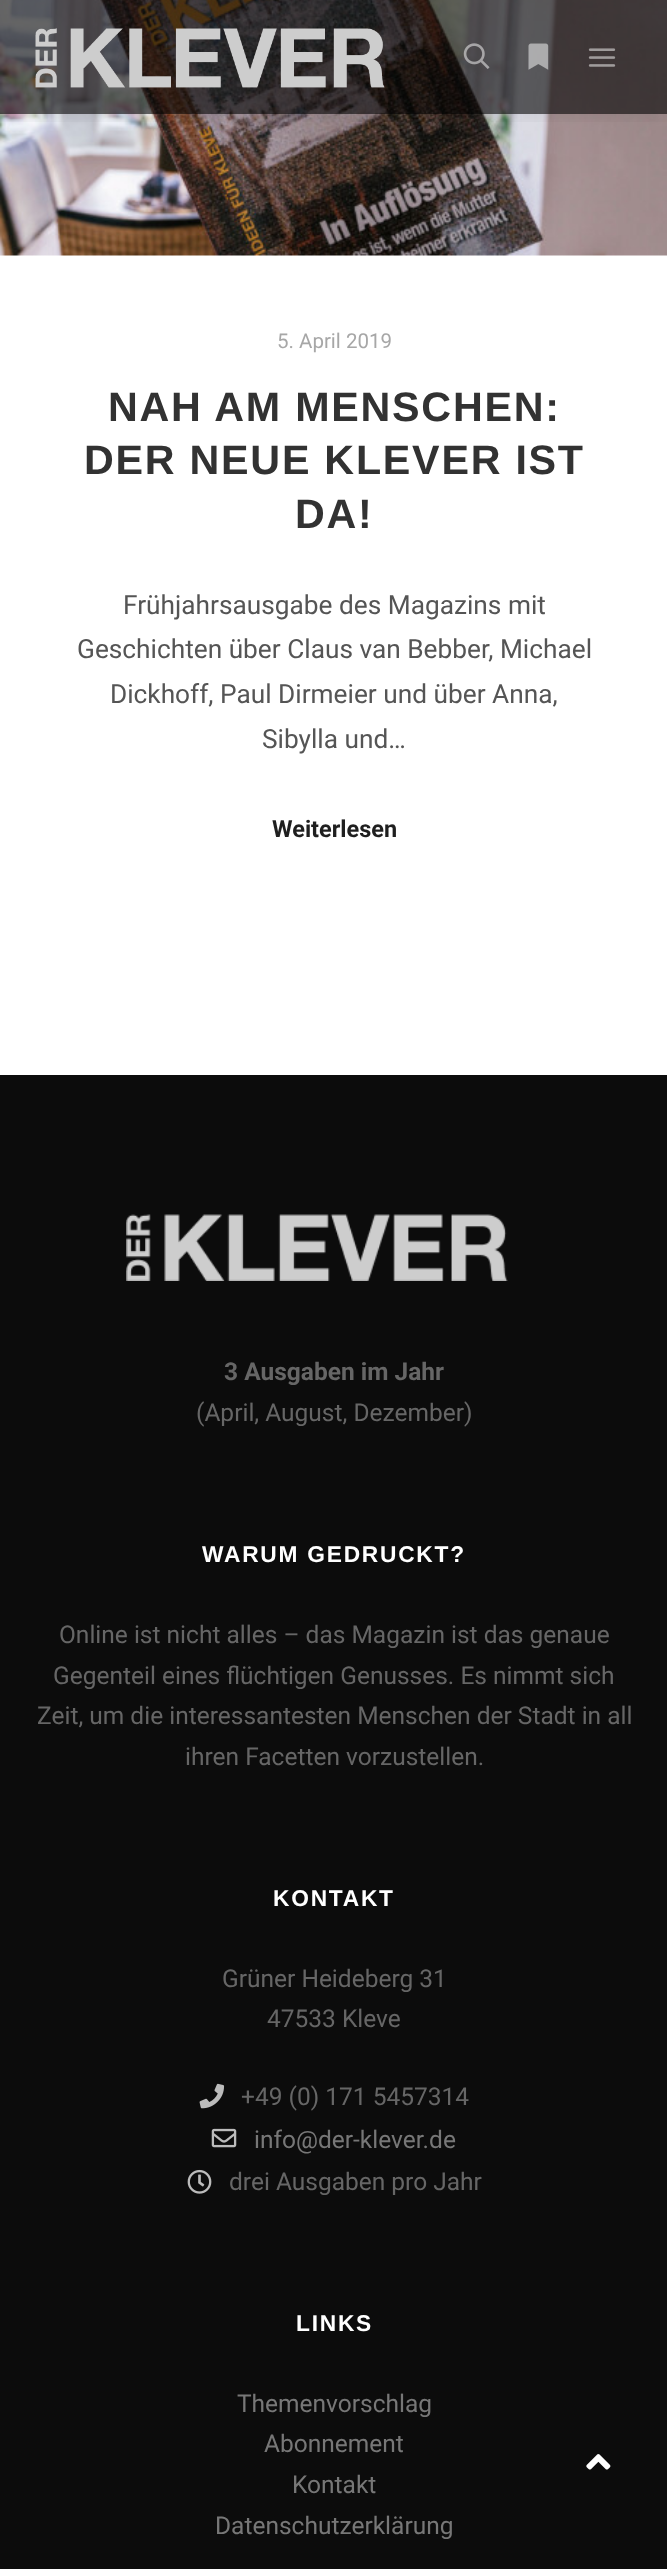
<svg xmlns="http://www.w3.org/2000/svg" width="667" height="2569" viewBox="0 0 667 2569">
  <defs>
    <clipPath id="clip1"><rect x="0" y="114" width="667" height="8"/></clipPath>
  </defs>
  <rect width="100%" height="100%" fill="rgb(255,255,255)"/>
  <image x="0" y="0" width="667" height="256" href="pic5.png"/>
  <g clip-path="url(#clip1)">
    <rect x="0" y="0" width="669" height="114" fill="rgba(0,0,0,0.09)" filter="blur(10.5px)"/>
  </g>
  <rect x="0" y="0" width="667" height="114" fill="rgba(0,0,0,0.6)"/>
  <image x="35" y="28" width="350" height="60" href="pic1.png"/>
  <image x="463" y="43" width="27" height="26" href="pic2.png"/>
  <image x="528" y="43" width="21" height="27" href="pic3.png"/>
  <image x="588" y="48" width="28" height="19" href="pic4.png"/>
  <text x="277" y="348" font-family="Roboto" font-size="20.5" fill="rgb(167,167,167)">5. April 2019</text>
  <g font-family="Liberation Sans" font-size="41.25" font-weight="bold" letter-spacing="1.75" fill="rgb(50,50,50)">
    <text x="108" y="421">NAH AM MENSCHEN:</text>
    <text x="84" y="474">DER NEUE KLEVER IST</text>
    <text x="295" y="528">DA!</text>
  </g>
  <g font-family="Roboto" font-size="26.25" fill="rgb(85,85,85)">
    <text x="123" y="614">Frühjahrsausgabe des Magazins mit</text>
    <text x="77" y="658">Geschichten über Claus van Bebber, Michael</text>
    <text x="110" y="703">Dickhoff, Paul Dirmeier und über Anna,</text>
    <text x="262" y="748">Sibylla und…</text>
  </g>
  <text x="272" y="837" font-family="Roboto" font-size="23.5" font-weight="bold" fill="rgb(31,31,31)">Weiterlesen</text>
  <rect x="0" y="1075" width="667" height="1494" fill="rgb(12,12,12)"/>
  <image x="126" y="1214" width="382" height="67" href="pic6.png"/>
  <text x="224" y="1380" font-family="Roboto" font-size="24.5" font-weight="bold" fill="rgb(102,102,102)">3 Ausgaben im Jahr</text>
  <text x="196" y="1421" font-family="Roboto" font-size="24.5" fill="rgb(102,102,102)">(April, August, Dezember)</text>
  <text x="202" y="1562" font-family="Liberation Sans" font-size="22.75" font-weight="bold" letter-spacing="1.75" fill="rgb(255,255,255)">WARUM GEDRUCKT?</text>
  <g font-family="Roboto" font-size="24.5" fill="rgb(102,102,102)">
    <text x="59" y="1643">Online ist nicht alles – das Magazin ist das genaue</text>
    <text x="53" y="1684">Gegenteil eines flüchtigen Genusses. Es nimmt sich</text>
    <text x="37" y="1724">Zeit, um die interessantesten Menschen der Stadt in all</text>
    <text x="185" y="1765">ihren Facetten vorzustellen.</text>
  </g>
  <text x="273" y="1906" font-family="Liberation Sans" font-size="22.75" font-weight="bold" letter-spacing="1.75" fill="rgb(255,255,255)">KONTAKT</text>
  <g font-family="Roboto" font-size="24.5" fill="rgb(102,102,102)">
    <text x="222" y="1987">Grüner Heideberg 31</text>
    <text x="267" y="2027">47533 Kleve</text>
  </g>
  <image x="199" y="2083" width="26" height="26" href="pic7.png"/>
  <text x="241" y="2105" font-family="Roboto" font-size="24.5" fill="rgb(102,102,102)">+49 (0) 171 5457314</text>
  <image x="211" y="2128" width="26" height="20" href="pic8.png"/>
  <text x="254" y="2148" font-family="Roboto" font-size="24.5" fill="rgb(119,119,119)">info@der-klever.de</text>
  <image x="187" y="2169" width="25" height="25" href="pic9.png"/>
  <text x="229" y="2190" font-family="Roboto" font-size="24.5" fill="rgb(102,102,102)">drei Ausgaben pro Jahr</text>
  <text x="296" y="2331" font-family="Liberation Sans" font-size="22.75" font-weight="bold" letter-spacing="1.75" fill="rgb(255,255,255)">LINKS</text>
  <g font-family="Roboto" font-size="24.5" fill="rgb(119,119,119)">
    <text x="237" y="2412">Themenvorschlag</text>
    <text x="264" y="2452">Abonnement</text>
    <text x="292" y="2493">Kontakt</text>
    <text x="215" y="2534">Datenschutzerklärung</text>
  </g>
  <image x="586" y="2454" width="25" height="16" href="pic10.png"/>
</svg>
